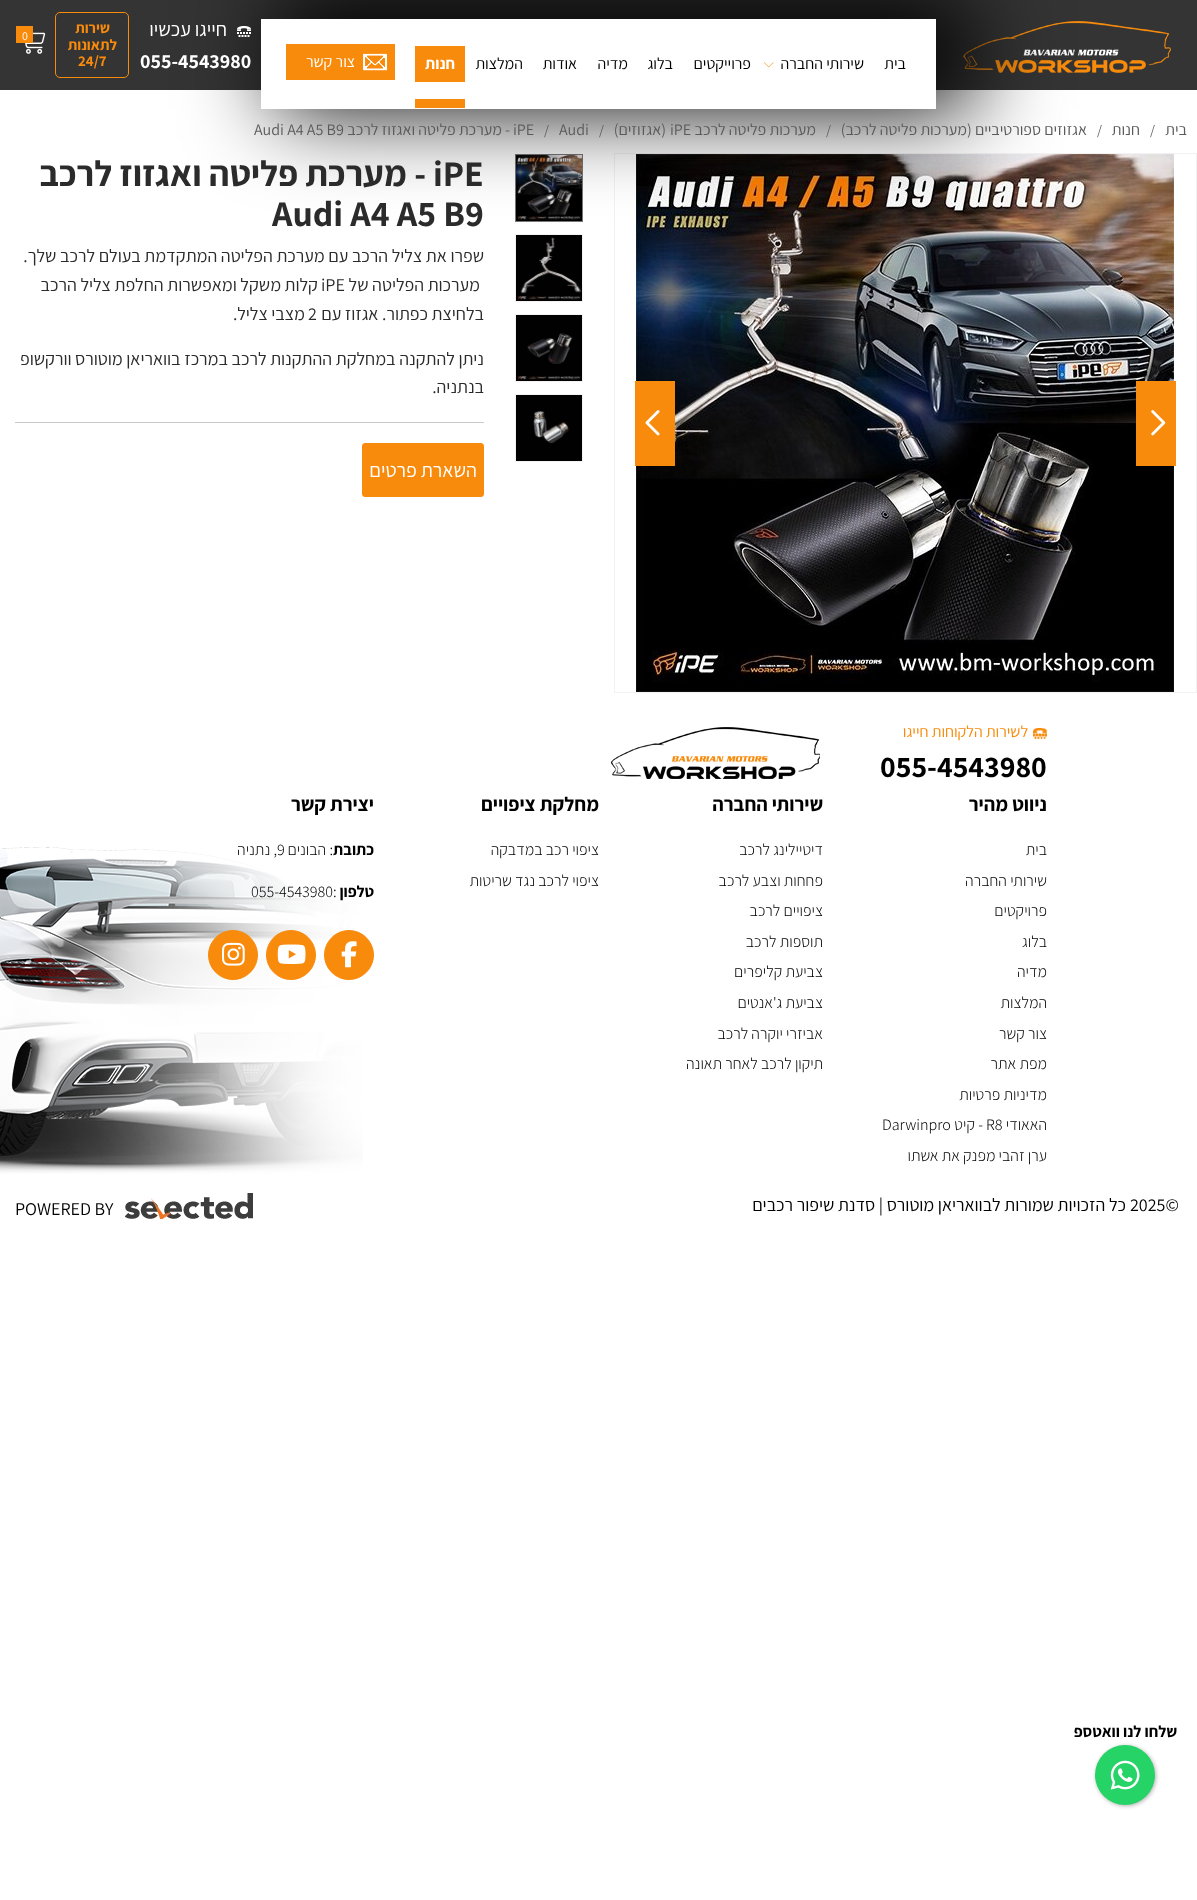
<svg xmlns="http://www.w3.org/2000/svg" width="1197" height="1900" viewBox="0 0 1197 1900">
  <rect width="100%" height="100%" fill="rgb(255,255,255)"/>
  <rect x="0" y="0" width="1197" height="90" fill="rgb(52,52,52)"/>
  <image x="963" y="21" width="208" height="52" href="pic1.png"/>
  <rect x="614.5" y="153.5" width="582" height="539" fill="none" stroke="rgb(242,242,242)"/>
  <image x="636" y="154" width="538" height="538" href="pic6.png"/>
  <rect x="515.5" y="154.5" width="67" height="67" fill="none" stroke="rgb(118,118,118)"/>
  <image x="516" y="155" width="66" height="66" href="pic9.png"/>
  <rect x="515.5" y="234.5" width="67" height="67" fill="none" stroke="rgb(242,242,242)"/>
  <image x="516" y="235" width="66" height="66" href="pic10.png"/>
  <rect x="276" y="-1" width="695" height="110" fill="rgb(0,0,0)" filter="blur(45px)"/>
  <rect x="261" y="19" width="675" height="90" fill="rgb(255,255,255)"/>
  <g font-family="Assistant" font-size="16" direction="rtl" fill="rgb(0,0,0)">
    <text x="906" y="69">בית</text>
    <text x="864" y="69">שירותי החברה</text>
  </g>
  <image x="764" y="62" width="10" height="6" href="pic2.png"/>
  <g font-family="Assistant" font-size="16" direction="rtl" fill="rgb(0,0,0)">
    <text x="751" y="69">פרוייקטים</text>
    <text x="673" y="69">בלוג</text>
    <text x="628" y="69">מדיה</text>
    <text x="577" y="69">אודות</text>
    <text x="523" y="69">המלצות</text>
  </g>
  <rect x="415" y="46" width="50" height="36" fill="rgb(248,139,12)"/>
  <text x="455" y="69" font-family="Assistant" font-size="16" font-weight="bold" direction="rtl" fill="rgb(255,255,255)">חנות</text>
  <rect x="415" y="99" width="50" height="9" fill="rgb(248,139,12)"/>
  <rect x="286" y="44" width="109" height="36" fill="rgb(248,139,12)"/>
  <image x="363" y="53" width="24" height="18" href="pic3.png"/>
  <text x="355" y="67" font-family="Assistant" font-size="16" direction="rtl" fill="rgb(255,255,255)">צור קשר</text>
  <image x="237" y="26" width="14" height="11" href="pic4.png"/>
  <text x="227" y="36" font-family="Assistant" font-size="20" direction="rtl" fill="rgb(255,255,255)">חייגו עכשיו</text>
  <text x="140" y="68" font-family="Assistant" font-size="20" font-weight="bold" fill="rgb(255,255,255)">055-4543980</text>
  <rect x="55.5" y="12.5" width="73" height="65" rx="4.5" fill="none" stroke="rgb(248,139,12)"/>
  <g font-family="Assistant" font-size="15" font-weight="bold" direction="rtl" fill="rgb(248,139,12)">
    <text x="110" y="33">שירות</text>
    <text x="117" y="50">לתאונות</text>
  </g>
  <text x="78" y="66" font-family="Assistant" font-size="15" font-weight="bold" fill="rgb(248,139,12)">24/7</text>
  <image x="25" y="32" width="21" height="22" href="pic5.png"/>
  <rect x="16" y="26" width="17" height="17" fill="rgb(248,139,12)"/>
  <text x="22" y="40" font-family="Assistant" font-size="12" fill="rgb(255,255,255)">0</text>
  <text x="1187" y="135" font-family="Assistant" font-size="16" direction="rtl" fill="rgb(90,90,90)">בית</text>
  <text x="1150" y="135" font-family="Assistant" font-size="14" fill="rgb(90,90,90)">/</text>
  <text x="1140" y="135" font-family="Assistant" font-size="16" direction="rtl" fill="rgb(90,90,90)">חנות</text>
  <text x="1097" y="135" font-family="Assistant" font-size="14" fill="rgb(90,90,90)">/</text>
  <text x="1087" y="135" font-family="Assistant" font-size="16" direction="rtl" fill="rgb(90,90,90)">אגזוזים ספורטיביים (מערכות פליטה לרכב)</text>
  <text x="826" y="135" font-family="Assistant" font-size="14" fill="rgb(90,90,90)">/</text>
  <text x="816" y="135" font-family="Assistant" font-size="16" direction="rtl" fill="rgb(90,90,90)">מערכות פליטה לרכב</text>
  <text x="670" y="135" font-family="Assistant" font-size="16" fill="rgb(90,90,90)">iPE</text>
  <text x="666" y="135" font-family="Assistant" font-size="16" direction="rtl" fill="rgb(90,90,90)">(אגזוזים)</text>
  <text x="599" y="135" font-family="Assistant" font-size="14" fill="rgb(90,90,90)">/</text>
  <text x="559" y="135" font-family="Assistant" font-size="16" fill="rgb(90,90,90)">Audi</text>
  <text x="544" y="135" font-family="Assistant" font-size="14" fill="rgb(90,90,90)">/</text>
  <text x="513" y="135" font-family="Assistant" font-size="16" fill="rgb(90,90,90)">iPE</text>
  <text x="510" y="135" font-family="Assistant" font-size="16" direction="rtl" fill="rgb(90,90,90)">- מערכת פליטה ואגזוז לרכב</text>
  <text x="254" y="135" font-family="Assistant" font-size="16" fill="rgb(90,90,90)">Audi A4 A5 B9</text>
  <rect x="1136" y="381" width="40" height="85" fill="rgb(248,139,12)"/>
  <image x="1151" y="410" width="15" height="26" href="pic7.png"/>
  <rect x="635" y="381" width="40" height="85" fill="rgb(248,139,12)"/>
  <image x="645" y="410" width="15" height="26" href="pic8.png"/>
  <rect x="515.5" y="314.5" width="67" height="67" fill="none" stroke="rgb(242,242,242)"/>
  <image x="516" y="315" width="66" height="66" href="pic11.png"/>
  <rect x="515.5" y="394.5" width="67" height="67" fill="none" stroke="rgb(242,242,242)"/>
  <image x="516" y="395" width="66" height="66" href="pic12.png"/>
  <text x="433" y="186" font-family="Assistant" font-size="36" font-weight="bold" fill="rgb(44,43,43)">iPE</text>
  <text x="426" y="186" font-family="Assistant" font-size="36" font-weight="bold" direction="rtl" fill="rgb(44,43,43)">- מערכת פליטה ואגזוז לרכב</text>
  <text x="272" y="226" font-family="Assistant" font-size="36" font-weight="bold" fill="rgb(44,43,43)">Audi A4 A5 B9</text>
  <g font-family="Assistant" font-size="18" direction="rtl" fill="rgb(44,43,43)">
    <text x="484" y="262">שפרו את צליל הרכב עם מערכת הפליטה המתקדמת בעולם לרכב שלך.</text>
    <text x="480" y="291">מערכות הפליטה של</text>
  </g>
  <text x="321" y="291" font-family="Assistant" font-size="18" fill="rgb(44,43,43)">iPE</text>
  <g font-family="Assistant" font-size="18" direction="rtl" fill="rgb(44,43,43)">
    <text x="318" y="291">קלות משקל ומאפשרות החלפת צליל הרכב</text>
    <text x="484" y="320">בלחיצת כפתור. אגזוז עם</text>
  </g>
  <text x="308" y="320" font-family="Assistant" font-size="18" fill="rgb(44,43,43)">2</text>
  <g font-family="Assistant" font-size="18" direction="rtl" fill="rgb(44,43,43)">
    <text x="305" y="320">מצבי צליל.</text>
    <text>
      <tspan x="484" y="365">ניתן להתקנה במחלקת ההתקנות לרכב במרכז בוואריאן מוטורס וורקשופ</tspan>
      <tspan x="484" y="393">בנתניה.</tspan>
    </text>
  </g>
  <rect x="15" y="422" width="469" height="1" fill="rgb(202,202,202)"/>
  <rect x="362.5" y="443.5" width="121" height="53" rx="2.5" fill="rgb(248,139,12)" stroke="rgb(248,139,12)"/>
  <text x="477" y="477" font-family="Assistant" font-size="20" direction="rtl" fill="rgb(255,255,255)">השארת פרטים</text>
  <text x="1177" y="1737" font-family="Assistant" font-size="16" font-weight="bold" direction="rtl" fill="rgb(0,0,0)">שלחו לנו וואטספ</text>
  <rect x="1096" y="1746" width="60" height="60" rx="30" fill="rgba(0,0,0,0.3)" filter="blur(2px)"/>
  <circle cx="1125" cy="1775" r="30" fill="rgb(37,211,102)"/>
  <image x="1110" y="1760" width="30" height="30" href="pic13.png"/>
  <image x="1033" y="728" width="14" height="11" href="pic14.png"/>
  <text x="1028" y="737" font-family="Assistant" font-size="16" direction="rtl" fill="rgb(248,139,12)">לשירות הלקוחות חייגו</text>
  <text x="880" y="777" font-family="Assistant" font-size="30" font-weight="bold" fill="rgb(0,0,0)">055-4543980</text>
  <image x="611" y="727" width="209" height="52" href="pic15.png"/>
  <text x="1047" y="811" font-family="Assistant" font-size="20" font-weight="bold" direction="rtl" fill="rgb(0,0,0)">ניווט מהיר</text>
  <g font-family="Assistant" font-size="16" font-weight="300" direction="rtl" fill="rgb(0,0,0)">
    <text>
      <tspan x="1047" y="855">בית</tspan>
      <tspan x="1047" y="886">שירותי החברה</tspan>
      <tspan x="1047" y="916">פרויקטים</tspan>
      <tspan x="1047" y="947">בלוג</tspan>
      <tspan x="1047" y="977">מדיה</tspan>
      <tspan x="1047" y="1008">המלצות</tspan>
      <tspan x="1047" y="1039">צור קשר</tspan>
      <tspan x="1047" y="1069">מפת אתר</tspan>
      <tspan x="1047" y="1100">מדיניות פרטיות</tspan>
      <tspan x="1047" y="1130">האאודי</tspan>
    </text>
  </g>
  <text x="986" y="1130" font-family="Assistant" font-size="16" font-weight="300" fill="rgb(0,0,0)">R8</text>
  <text x="983" y="1130" font-family="Assistant" font-size="16" font-weight="300" direction="rtl" fill="rgb(0,0,0)">- קיט</text>
  <text x="882" y="1130" font-family="Assistant" font-size="16" font-weight="300" fill="rgb(0,0,0)">Darwinpro</text>
  <text x="1047" y="1161" font-family="Assistant" font-size="16" font-weight="300" direction="rtl" fill="rgb(0,0,0)">ערן זהבי מפנק את אשתו</text>
  <text x="823" y="811" font-family="Assistant" font-size="20" font-weight="bold" direction="rtl" fill="rgb(0,0,0)">שירותי החברה</text>
  <g font-family="Assistant" font-size="16" font-weight="300" direction="rtl" fill="rgb(0,0,0)">
    <text>
      <tspan x="823" y="855">דיטיילינג לרכב</tspan>
      <tspan x="823" y="886">פחחות וצבע לרכב</tspan>
      <tspan x="823" y="916">ציפויים לרכב</tspan>
      <tspan x="823" y="947">תוספות לרכב</tspan>
      <tspan x="823" y="977">צביעת קליפרים</tspan>
      <tspan x="823" y="1008">צביעת ג'אנטים</tspan>
      <tspan x="823" y="1039">אביזרי יוקרה לרכב</tspan>
      <tspan x="823" y="1069">תיקון לרכב לאחר תאונה</tspan>
    </text>
  </g>
  <text x="599" y="811" font-family="Assistant" font-size="20" font-weight="bold" direction="rtl" fill="rgb(0,0,0)">מחלקת ציפויים</text>
  <g font-family="Assistant" font-size="16" font-weight="300" direction="rtl" fill="rgb(0,0,0)">
    <text>
      <tspan x="599" y="855">ציפוי רכב במדבקה</tspan>
      <tspan x="599" y="886">ציפוי לרכב נגד שריטות</tspan>
    </text>
  </g>
  <text x="374" y="811" font-family="Assistant" font-size="20" font-weight="bold" direction="rtl" fill="rgb(0,0,0)">יצירת קשר</text>
  <image x="0" y="847" width="363" height="327" href="pic19.png"/>
  <text x="374" y="855" font-family="Assistant" font-size="16" font-weight="bold" direction="rtl" fill="rgb(0,0,0)">כתובת</text>
  <text x="333" y="855" font-family="Assistant" font-size="16" font-weight="300" direction="rtl" fill="rgb(0,0,0)">: הבונים</text>
  <text x="277" y="855" font-family="Assistant" font-size="16" font-weight="300" fill="rgb(0,0,0)">9</text>
  <text x="277" y="855" font-family="Assistant" font-size="16" font-weight="300" direction="rtl" fill="rgb(0,0,0)">, נתניה</text>
  <text x="374" y="897" font-family="Assistant" font-size="16" font-weight="bold" direction="rtl" fill="rgb(0,0,0)">טלפון</text>
  <g font-family="Assistant" font-size="16" font-weight="300" fill="rgb(0,0,0)">
    <text x="333" y="897">:</text>
    <text x="251" y="897">055-4543980</text>
  </g>
  <circle cx="349" cy="955" r="24.5" fill="rgb(248,139,12)" stroke="rgb(248,139,12)"/>
  <image x="341" y="941" width="16" height="27" href="pic16.png"/>
  <circle cx="291" cy="955" r="24.5" fill="rgb(248,139,12)" stroke="rgb(248,139,12)"/>
  <image x="277" y="944" width="29" height="20" href="pic17.png"/>
  <circle cx="233" cy="955" r="24.5" fill="rgb(248,139,12)" stroke="rgb(248,139,12)"/>
  <image x="222" y="942" width="23" height="24" href="pic18.png"/>
  <text x="1130" y="1211" font-family="Assistant" font-size="18" fill="rgb(0,0,0)">2025©</text>
  <text x="1126" y="1211" font-family="Assistant" font-size="18" direction="rtl" fill="rgb(0,0,0)">כל הזכויות שמורות לבוואריאן מוטורס | סדנת שיפור רכבים</text>
  <image x="125" y="1193" width="128" height="26" href="pic20.png"/>
  <text x="15" y="1215" font-family="Assistant" font-size="18" fill="rgb(0,0,0)">POWERED BY</text>
</svg>
